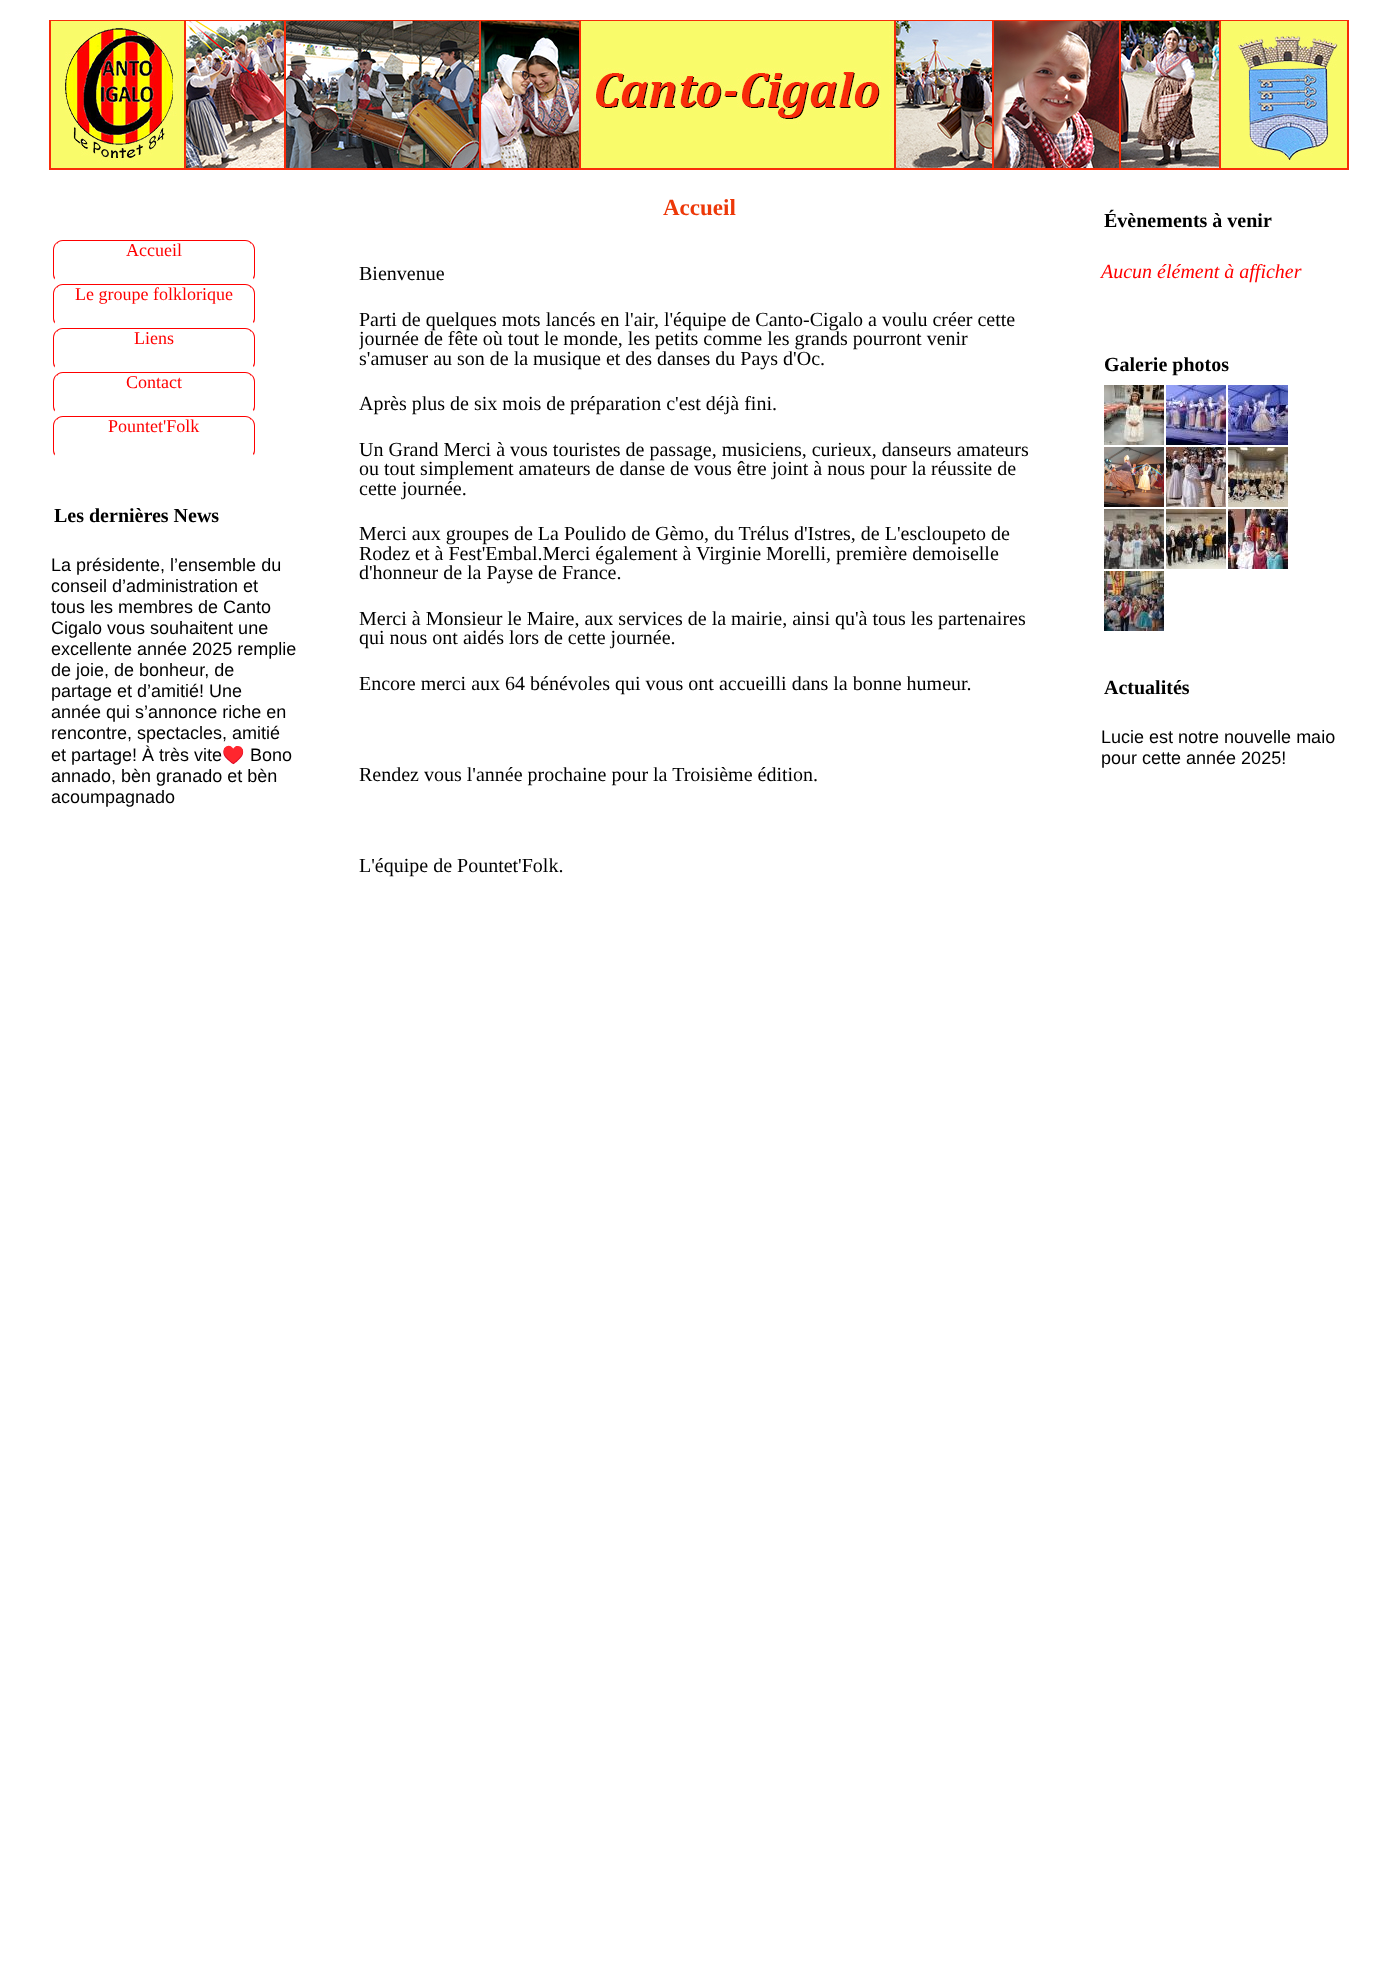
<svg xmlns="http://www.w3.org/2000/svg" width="1398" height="1975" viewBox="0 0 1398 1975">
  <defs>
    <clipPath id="clip1"><rect x="359" y="244" width="680" height="703"/></clipPath>
  </defs>
  <rect width="100%" height="100%" fill="rgb(255,255,255)"/>
  <image x="49" y="20" width="1300" height="150" href="pic1.png"/>
  <path d="M63 240C60 240 58 241 56 243L57 244C58 242 60 241 63 241H245C248 241 250 242 251 244L252 243C250 241 248 240 245 240Z" fill="rgb(255,0,0)"/>
  <path d="M255 274V250C255 247 254 244.5 252 243L251.5 243.5C253 245 254 247.5 254 250V274C254 275.5 253.5 276.5 253 277.5L253.5 279.5C254.5 278 255 276 255 274Z" fill="rgb(255,0,0)"/>
  <path d="M63 284H245C249 284 252 282 254 280L253 278C251 280 248 281 245 281H63C60 281 57 280 55 278L54 280C56 282 59 284 63 284Z" fill="rgb(255,255,255)"/>
  <path d="M53 250V274C53 276 53.5 278 54.5 279.5L55 277.5C54.5 276.5 54 275.5 54 274V250C54 247.5 55 245 56.5 243.5L56 243C54 244.5 53 247 53 250Z" fill="rgb(255,0,0)"/>
  <text x="126" y="256" font-family="Liberation Serif" font-size="18" fill="rgb(255,0,0)">Accueil</text>
  <path d="M63 284C60 284 58 285 56 287L57 288C58 286 60 285 63 285H245C248 285 250 286 251 288L252 287C250 285 248 284 245 284Z" fill="rgb(255,0,0)"/>
  <path d="M255 318V294C255 291 254 288.5 252 287L251.5 287.5C253 289 254 291.5 254 294V318C254 319.5 253.5 320.5 253 321.5L253.5 323.5C254.5 322 255 320 255 318Z" fill="rgb(255,0,0)"/>
  <path d="M63 328H245C249 328 252 326 254 324L253 322C251 324 248 325 245 325H63C60 325 57 324 55 322L54 324C56 326 59 328 63 328Z" fill="rgb(255,255,255)"/>
  <path d="M53 294V318C53 320 53.5 322 54.5 323.5L55 321.5C54.5 320.5 54 319.5 54 318V294C54 291.5 55 289 56.5 287.5L56 287C54 288.5 53 291 53 294Z" fill="rgb(255,0,0)"/>
  <text x="75" y="300" font-family="Liberation Serif" font-size="18" fill="rgb(255,0,0)">Le groupe folklorique</text>
  <path d="M63 328C60 328 58 329 56 331L57 332C58 330 60 329 63 329H245C248 329 250 330 251 332L252 331C250 329 248 328 245 328Z" fill="rgb(255,0,0)"/>
  <path d="M255 362V338C255 335 254 332.5 252 331L251.5 331.5C253 333 254 335.5 254 338V362C254 363.5 253.5 364.5 253 365.5L253.5 367.5C254.5 366 255 364 255 362Z" fill="rgb(255,0,0)"/>
  <path d="M63 372H245C249 372 252 370 254 368L253 366C251 368 248 369 245 369H63C60 369 57 368 55 366L54 368C56 370 59 372 63 372Z" fill="rgb(255,255,255)"/>
  <path d="M53 338V362C53 364 53.5 366 54.5 367.5L55 365.5C54.5 364.5 54 363.5 54 362V338C54 335.5 55 333 56.5 331.5L56 331C54 332.5 53 335 53 338Z" fill="rgb(255,0,0)"/>
  <text x="134" y="344" font-family="Liberation Serif" font-size="18" fill="rgb(255,0,0)">Liens</text>
  <path d="M63 372C60 372 58 373 56 375L57 376C58 374 60 373 63 373H245C248 373 250 374 251 376L252 375C250 373 248 372 245 372Z" fill="rgb(255,0,0)"/>
  <path d="M255 406V382C255 379 254 376.5 252 375L251.5 375.5C253 377 254 379.5 254 382V406C254 407.5 253.5 408.5 253 409.5L253.5 411.5C254.5 410 255 408 255 406Z" fill="rgb(255,0,0)"/>
  <path d="M63 416H245C249 416 252 414 254 412L253 410C251 412 248 413 245 413H63C60 413 57 412 55 410L54 412C56 414 59 416 63 416Z" fill="rgb(255,255,255)"/>
  <path d="M53 382V406C53 408 53.5 410 54.5 411.5L55 409.5C54.5 408.5 54 407.5 54 406V382C54 379.5 55 377 56.5 375.5L56 375C54 376.5 53 379 53 382Z" fill="rgb(255,0,0)"/>
  <text x="126" y="388" font-family="Liberation Serif" font-size="18" fill="rgb(255,0,0)">Contact</text>
  <path d="M63 416C60 416 58 417 56 419L57 420C58 418 60 417 63 417H245C248 417 250 418 251 420L252 419C250 417 248 416 245 416Z" fill="rgb(255,0,0)"/>
  <path d="M255 450V426C255 423 254 420.5 252 419L251.5 419.5C253 421 254 423.5 254 426V450C254 451.5 253.5 452.5 253 453.5L253.5 455.5C254.5 454 255 452 255 450Z" fill="rgb(255,0,0)"/>
  <path d="M63 460H245C249 460 252 458 254 456L253 454C251 456 248 457 245 457H63C60 457 57 456 55 454L54 456C56 458 59 460 63 460Z" fill="rgb(255,255,255)"/>
  <path d="M53 426V450C53 452 53.5 454 54.5 455.5L55 453.5C54.5 452.5 54 451.5 54 450V426C54 423.5 55 421 56.5 419.5L56 419C54 420.5 53 423 53 426Z" fill="rgb(255,0,0)"/>
  <text x="108" y="432" font-family="Liberation Serif" font-size="18" fill="rgb(255,0,0)">Pountet'Folk</text>
  <text x="54" y="522" font-family="Liberation Serif" font-size="20" font-weight="bold" fill="rgb(0,0,0)">Les dernières News</text>
  <g font-family="Liberation Sans" font-size="18" fill="rgb(0,0,0)">
    <text>
      <tspan x="51" y="571">La présidente, l’ensemble du</tspan>
      <tspan x="51" y="592">conseil d’administration et</tspan>
      <tspan x="51" y="613">tous les membres de Canto</tspan>
      <tspan x="51" y="634">Cigalo vous souhaitent une</tspan>
      <tspan x="51" y="655">excellente année 2025 remplie</tspan>
      <tspan x="51" y="676">de joie, de bonheur, de</tspan>
      <tspan x="51" y="697">partage et d’amitié! Une</tspan>
      <tspan x="51" y="718">année qui s’annonce riche en</tspan>
      <tspan x="51" y="739">rencontre, spectacles, amitié</tspan>
      <tspan x="51" y="761">et partage! À très vite</tspan>
    </text>
  </g>
  <text x="222" y="761" font-family="Noto Color Emoji" font-size="18" fill="rgb(0,0,0)">♥️</text>
  <g font-family="Liberation Sans" font-size="18" fill="rgb(0,0,0)">
    <text x="250" y="761">Bono</text>
    <text>
      <tspan x="51" y="782">annado, bèn granado et bèn</tspan>
      <tspan x="51" y="803">acoumpagnado</tspan>
    </text>
  </g>
  <text x="663" y="215" font-family="Liberation Serif" font-size="23" font-weight="bold" fill="rgb(237,56,8)">Accueil</text>
  <g font-family="Liberation Serif" font-size="20" fill="rgb(0,0,0)">
    <text x="359" y="280">Bienvenue</text>
    <text x="359" y="326">Parti de quelques mots lancés en l'air, l'équipe de Canto-Cigalo a voulu créer cette</text>
  </g>
  <g clip-path="url(#clip1)">
    <text x="359" y="345" font-family="Liberation Serif" font-size="20" fill="rgb(0,0,0)">journée de fête où tout le monde, les petits comme les grands pourront venir</text>
  </g>
  <g font-family="Liberation Serif" font-size="20" fill="rgb(0,0,0)">
    <text x="359" y="365">s'amuser au son de la musique et des danses du Pays d'Oc.</text>
    <text x="359" y="410">Après plus de six mois de préparation c'est déjà fini.</text>
    <text>
      <tspan x="359" y="456">Un Grand Merci à vous touristes de passage, musiciens, curieux, danseurs amateurs</tspan>
      <tspan x="359" y="475">ou tout simplement amateurs de danse de vous être joint à nous pour la réussite de</tspan>
      <tspan x="359" y="495">cette journée.</tspan>
    </text>
    <text>
      <tspan x="359" y="540">Merci aux groupes de La Poulido de Gèmo, du Trélus d'Istres, de L'escloupeto de</tspan>
      <tspan x="359" y="560">Rodez et à Fest'Embal.Merci également à Virginie Morelli, première demoiselle</tspan>
      <tspan x="359" y="579">d'honneur de la Payse de France.</tspan>
    </text>
    <text>
      <tspan x="359" y="625">Merci à Monsieur le Maire, aux services de la mairie, ainsi qu'à tous les partenaires</tspan>
      <tspan x="359" y="644">qui nous ont aidés lors de cette journée.</tspan>
    </text>
    <text x="359" y="690">Encore merci aux 64 bénévoles qui vous ont accueilli dans la bonne humeur.</text>
    <text x="359" y="781">Rendez vous l'année prochaine pour la Troisième édition.</text>
    <text x="359" y="872">L'équipe de Pountet'Folk.</text>
  </g>
  <text x="1104" y="227" font-family="Liberation Serif" font-size="20" font-weight="bold" fill="rgb(0,0,0)">Évènements à venir</text>
  <text x="1101" y="278" font-family="Liberation Serif" font-size="20" font-style="italic" fill="rgb(255,0,0)">Aucun élément à afficher</text>
  <text x="1104" y="371" font-family="Liberation Serif" font-size="20" font-weight="bold" fill="rgb(0,0,0)">Galerie photos</text>
  <image x="1104" y="385" width="60" height="60" href="pic2.png"/>
  <image x="1166" y="385" width="60" height="60" href="pic3.png"/>
  <image x="1228" y="385" width="60" height="60" href="pic4.png"/>
  <image x="1104" y="447" width="60" height="60" href="pic5.png"/>
  <image x="1166" y="447" width="60" height="60" href="pic6.png"/>
  <image x="1228" y="447" width="60" height="60" href="pic7.png"/>
  <image x="1104" y="509" width="60" height="60" href="pic8.png"/>
  <image x="1166" y="509" width="60" height="60" href="pic9.png"/>
  <image x="1228" y="509" width="60" height="60" href="pic10.png"/>
  <image x="1104" y="571" width="60" height="60" href="pic11.png"/>
  <text x="1104" y="694" font-family="Liberation Serif" font-size="20" font-weight="bold" fill="rgb(0,0,0)">Actualités</text>
  <g font-family="Liberation Sans" font-size="18" fill="rgb(0,0,0)">
    <text>
      <tspan x="1101" y="743">Lucie est notre nouvelle maio</tspan>
      <tspan x="1101" y="764">pour cette année 2025!</tspan>
    </text>
  </g>
</svg>
